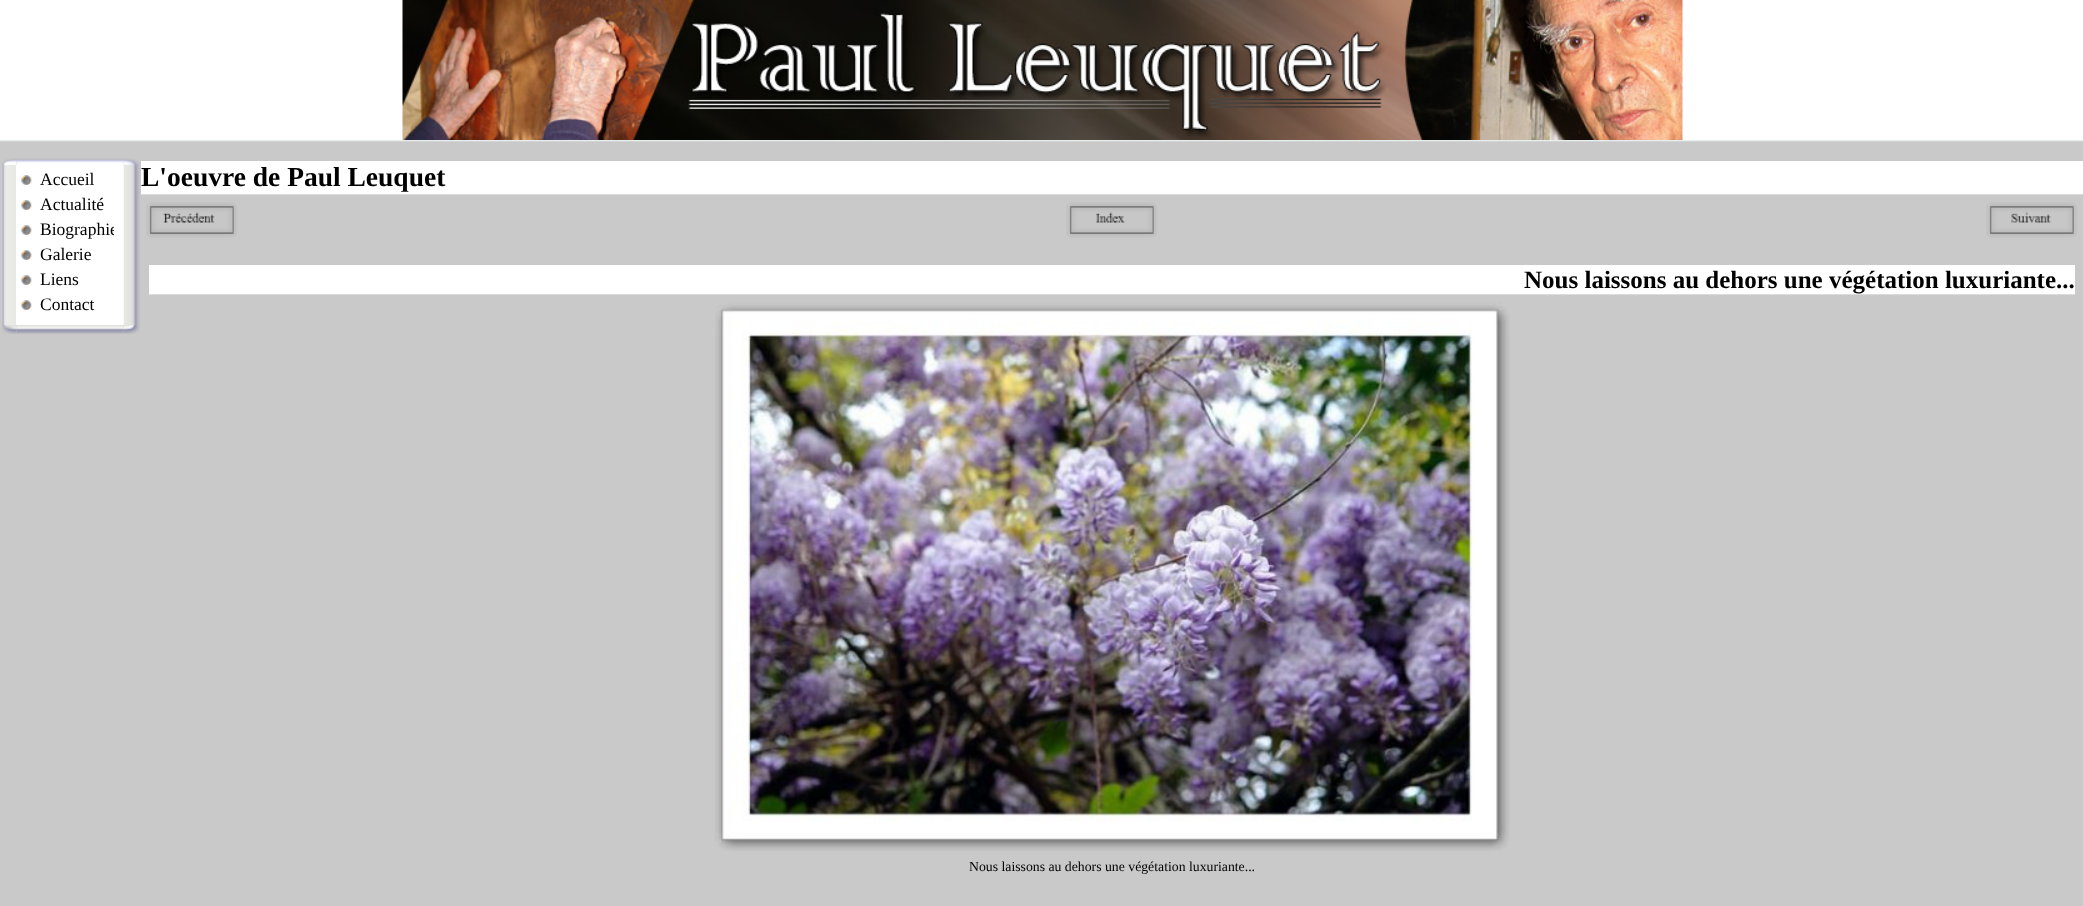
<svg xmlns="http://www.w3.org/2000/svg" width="2083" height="906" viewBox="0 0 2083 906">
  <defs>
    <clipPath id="clip1"><rect x="40" y="220" width="74" height="20"/></clipPath>
  </defs>
  <rect width="100%" height="100%" fill="rgb(201,201,201)"/>
  <rect x="0" y="0" width="2083" height="140" fill="rgb(255,255,255)"/>
  <image x="402" y="0" width="1281" height="140" href="pic1.png"/>
  <image x="0" y="140" width="2083" height="2" href="pic2.png"/>
  <image x="2" y="158" width="14" height="7" href="pic3.png"/>
  <image x="16" y="158" width="108" height="7" href="pic4.png"/>
  <image x="124" y="158" width="16" height="7" href="pic5.png"/>
  <image x="2" y="165" width="14" height="160" href="pic6.png"/>
  <rect x="16" y="165" width="108" height="160" fill="rgb(255,255,255)"/>
  <image x="21" y="175" width="11" height="10" href="pic7.png"/>
  <text x="40" y="185" font-family="Liberation Serif" font-size="17.5" fill="rgb(0,0,0)">Accueil</text>
  <image x="21" y="200" width="11" height="10" href="pic7.png"/>
  <text x="40" y="210" font-family="Liberation Serif" font-size="17.5" fill="rgb(0,0,0)">Actualité</text>
  <image x="21" y="225" width="11" height="10" href="pic7.png"/>
  <g clip-path="url(#clip1)">
    <text x="40" y="235" font-family="Liberation Serif" font-size="17.5" fill="rgb(0,0,0)">Biographie</text>
  </g>
  <image x="21" y="250" width="11" height="10" href="pic7.png"/>
  <text x="40" y="260" font-family="Liberation Serif" font-size="17.5" fill="rgb(0,0,0)">Galerie</text>
  <image x="21" y="275" width="11" height="10" href="pic7.png"/>
  <text x="40" y="285" font-family="Liberation Serif" font-size="17.5" fill="rgb(0,0,0)">Liens</text>
  <image x="21" y="300" width="11" height="10" href="pic7.png"/>
  <text x="40" y="310" font-family="Liberation Serif" font-size="17.5" fill="rgb(0,0,0)">Contact</text>
  <image x="123" y="165" width="17" height="160" href="pic8.png"/>
  <image x="2" y="325" width="14" height="9" href="pic9.png"/>
  <image x="16" y="325" width="108" height="9" href="pic10.png"/>
  <image x="123" y="325" width="17" height="9" href="pic11.png"/>
  <rect x="141" y="161" width="1942" height="33" fill="rgb(255,255,255)"/>
  <rect x="141" y="194" width="1942" height="1" fill="rgb(218,221,223)"/>
  <text x="141" y="186" font-family="Liberation Serif" font-size="27.5" font-weight="bold" fill="rgb(0,0,0)">L'oeuvre de Paul Leuquet</text>
  <image x="146" y="202" width="91" height="36" href="pic12.png"/>
  <image x="1066" y="202" width="91" height="36" href="pic13.png"/>
  <image x="1986" y="202" width="91" height="36" href="pic14.png"/>
  <rect x="149" y="265" width="1926" height="29" fill="rgb(255,255,255)"/>
  <rect x="149" y="294" width="1926" height="1" fill="rgb(218,221,223)"/>
  <text x="1524" y="288" font-family="Liberation Serif" font-size="25" font-weight="bold" fill="rgb(0,0,0)">Nous laissons au dehors une végétation luxuriante...</text>
  <image x="715" y="301" width="795" height="550" href="pic15.png"/>
  <text x="969" y="871" font-family="Liberation Serif" font-size="13.75" fill="rgb(0,0,0)">Nous laissons au dehors une végétation luxuriante...</text>
</svg>
